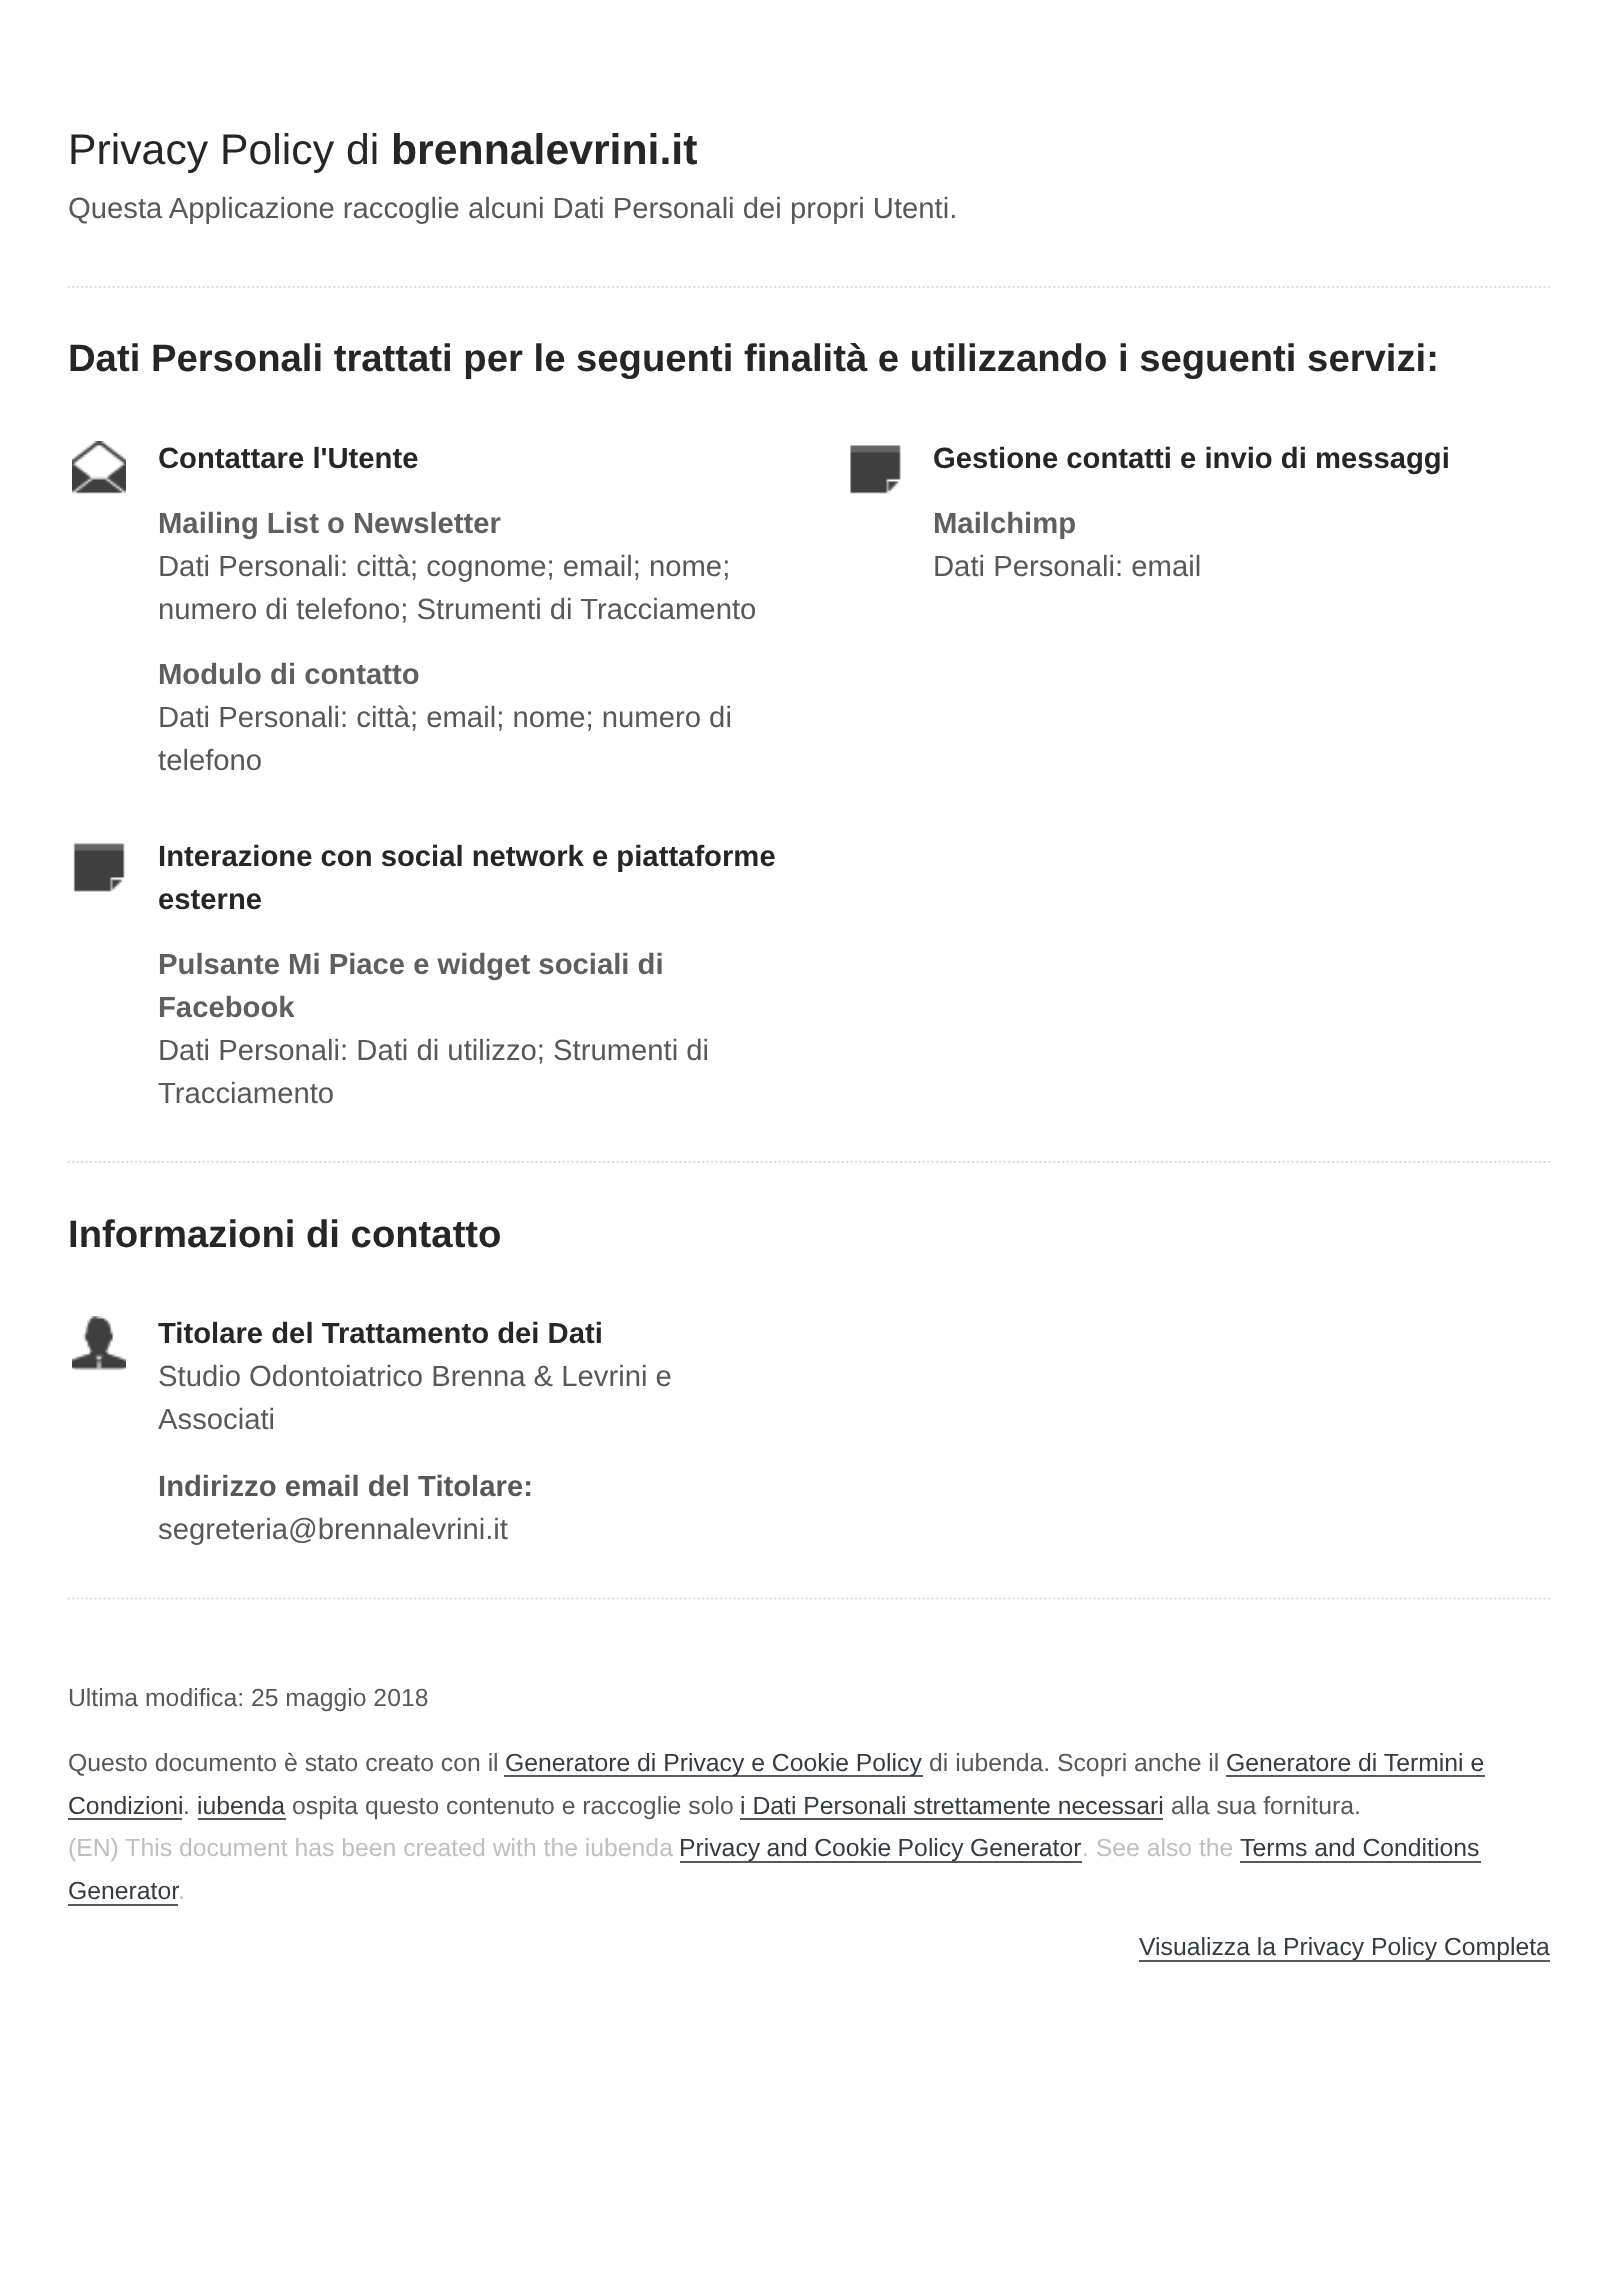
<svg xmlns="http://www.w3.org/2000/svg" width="1617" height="2285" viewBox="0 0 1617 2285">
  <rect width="100%" height="100%" fill="rgb(255,255,255)"/>
  <path d="M67.5 287H1550" fill="none" stroke="rgb(223,223,223)" stroke-width="2.2" stroke-dasharray="2.25 2.25"/>
  <text x="68" y="164" font-family="Liberation Sans" font-size="42.75" fill="rgb(38,38,38)">Privacy Policy di</text>
  <text x="391" y="164" font-family="Liberation Sans" font-size="42.75" font-weight="bold" fill="rgb(38,38,38)">brennalevrini.it</text>
  <text x="68" y="218" font-family="Liberation Sans" font-size="29.25" fill="rgb(89,88,88)">Questa Applicazione raccoglie alcuni Dati Personali dei propri Utenti.</text>
  <text x="68" y="371" font-family="Liberation Sans" font-size="38.25" font-weight="bold" fill="rgb(38,38,38)">Dati Personali trattati per le seguenti finalità e utilizzando i seguenti servizi:</text>
  <path d="M67.5 1162H1550" fill="none" stroke="rgb(223,223,223)" stroke-width="2.2" stroke-dasharray="2.25 2.25"/>
  <image x="72" y="441" width="54" height="53" href="pic1.png"/>
  <text x="158" y="468" font-family="Liberation Sans" font-size="29.25" font-weight="bold" fill="rgb(38,38,38)">Contattare l'Utente</text>
  <text x="158" y="533" font-family="Liberation Sans" font-size="29.25" font-weight="bold" fill="rgb(97,94,94)">Mailing List o Newsletter</text>
  <g font-family="Liberation Sans" font-size="29.25" fill="rgb(89,88,88)">
    <text>
      <tspan x="158" y="576">Dati Personali: città; cognome; email; nome;</tspan>
      <tspan x="158" y="619">numero di telefono; Strumenti di Tracciamento</tspan>
    </text>
  </g>
  <text x="158" y="684" font-family="Liberation Sans" font-size="29.25" font-weight="bold" fill="rgb(97,94,94)">Modulo di contatto</text>
  <g font-family="Liberation Sans" font-size="29.25" fill="rgb(89,88,88)">
    <text>
      <tspan x="158" y="727">Dati Personali: città; email; nome; numero di</tspan>
      <tspan x="158" y="770">telefono</tspan>
    </text>
  </g>
  <image x="850" y="445" width="51" height="49" href="pic2.png"/>
  <text x="933" y="468" font-family="Liberation Sans" font-size="29.25" font-weight="bold" fill="rgb(38,38,38)">Gestione contatti e invio di messaggi</text>
  <text x="933" y="533" font-family="Liberation Sans" font-size="29.25" font-weight="bold" fill="rgb(97,94,94)">Mailchimp</text>
  <text x="933" y="576" font-family="Liberation Sans" font-size="29.25" fill="rgb(89,88,88)">Dati Personali: email</text>
  <image x="73" y="843" width="52" height="49" href="pic3.png"/>
  <g font-family="Liberation Sans" font-size="29.25" font-weight="bold" fill="rgb(38,38,38)">
    <text>
      <tspan x="158" y="866">Interazione con social network e piattaforme</tspan>
      <tspan x="158" y="909">esterne</tspan>
    </text>
  </g>
  <g font-family="Liberation Sans" font-size="29.25" font-weight="bold" fill="rgb(97,94,94)">
    <text>
      <tspan x="158" y="974">Pulsante Mi Piace e widget sociali di</tspan>
      <tspan x="158" y="1017">Facebook</tspan>
    </text>
  </g>
  <g font-family="Liberation Sans" font-size="29.25" fill="rgb(89,88,88)">
    <text>
      <tspan x="158" y="1060">Dati Personali: Dati di utilizzo; Strumenti di</tspan>
      <tspan x="158" y="1103">Tracciamento</tspan>
    </text>
  </g>
  <text x="68" y="1247" font-family="Liberation Sans" font-size="38.25" font-weight="bold" fill="rgb(38,38,38)">Informazioni di contatto</text>
  <path d="M67.5 1598.5H1550" fill="none" stroke="rgb(223,223,223)" stroke-width="2.2" stroke-dasharray="2.25 2.25"/>
  <image x="72" y="1316" width="54" height="55" href="pic4.png"/>
  <text x="158" y="1343" font-family="Liberation Sans" font-size="29.25" font-weight="bold" fill="rgb(38,38,38)">Titolare del Trattamento dei Dati</text>
  <g font-family="Liberation Sans" font-size="29.25" fill="rgb(89,88,88)">
    <text>
      <tspan x="158" y="1386">Studio Odontoiatrico Brenna &amp; Levrini e</tspan>
      <tspan x="158" y="1429">Associati</tspan>
    </text>
  </g>
  <text x="158" y="1496" font-family="Liberation Sans" font-size="29.25" font-weight="bold" fill="rgb(89,88,88)">Indirizzo email del Titolare:</text>
  <text x="158" y="1539" font-family="Liberation Sans" font-size="29.25" fill="rgb(89,88,88)">segreteria@brennalevrini.it</text>
  <g font-family="Liberation Sans" font-size="24.75" fill="rgb(89,88,88)">
    <text x="68" y="1706">Ultima modifica: 25 maggio 2018</text>
    <text x="68" y="1771">Questo documento è stato creato con il</text>
  </g>
  <rect x="504" y="1775" width="419" height="2" fill="rgb(89,88,88)"/>
  <text x="505" y="1771" font-family="Liberation Sans" font-size="24.75" fill="rgb(51,59,67)">Generatore di Privacy e Cookie Policy</text>
  <text x="929" y="1771" font-family="Liberation Sans" font-size="24.75" fill="rgb(89,88,88)">di iubenda. Scopri anche il</text>
  <text x="1226" y="1771" font-family="Liberation Sans" font-size="24.75" fill="rgb(51,59,67)">Generatore di Termini e</text>
  <rect x="1226" y="1775" width="259" height="2" fill="rgb(89,88,88)"/>
  <text x="68" y="1814" font-family="Liberation Sans" font-size="24.75" fill="rgb(51,59,67)">Condizioni</text>
  <rect x="68" y="1818" width="114" height="2" fill="rgb(89,88,88)"/>
  <text x="183" y="1814" font-family="Liberation Sans" font-size="24.75" fill="rgb(89,88,88)">.</text>
  <text x="197" y="1814" font-family="Liberation Sans" font-size="24.75" fill="rgb(51,59,67)">iubenda</text>
  <rect x="198" y="1818" width="88" height="2" fill="rgb(89,88,88)"/>
  <text x="292" y="1814" font-family="Liberation Sans" font-size="24.75" fill="rgb(89,88,88)">ospita questo contenuto e raccoglie solo</text>
  <text x="740" y="1814" font-family="Liberation Sans" font-size="24.75" fill="rgb(51,59,67)">i Dati Personali strettamente necessari</text>
  <rect x="740" y="1818" width="423" height="2" fill="rgb(89,88,88)"/>
  <text x="1171" y="1814" font-family="Liberation Sans" font-size="24.75" fill="rgb(89,88,88)">alla sua fornitura.</text>
  <text x="68" y="1856" font-family="Liberation Sans" font-size="24.75" fill="rgb(191,191,191)">(EN) This document has been created with the iubenda</text>
  <rect x="680" y="1861" width="402" height="2" fill="rgb(89,88,88)"/>
  <text x="679" y="1856" word-spacing="-0.5" font-family="Liberation Sans" font-size="24.75" fill="rgb(51,59,67)">Privacy and Cookie Policy Generator</text>
  <text x="1082" y="1856" font-family="Liberation Sans" font-size="24.75" fill="rgb(191,191,191)">. See also the</text>
  <text x="1240" y="1856" font-family="Liberation Sans" font-size="24.75" fill="rgb(51,59,67)">Terms and Conditions</text>
  <rect x="1240" y="1861" width="241" height="2" fill="rgb(89,88,88)"/>
  <text x="68" y="1899" font-family="Liberation Sans" font-size="24.75" fill="rgb(51,59,67)">Generator</text>
  <text x="178" y="1899" font-family="Liberation Sans" font-size="24.75" fill="rgb(191,191,191)">.</text>
  <rect x="68" y="1904" width="110" height="2" fill="rgb(89,88,88)"/>
  <rect x="1139" y="1960" width="411" height="2" fill="rgb(89,88,88)"/>
  <text x="1139" y="1955" font-family="Liberation Sans" font-size="24.75" fill="rgb(51,59,67)">Visualizza la Privacy Policy Completa</text>
</svg>
